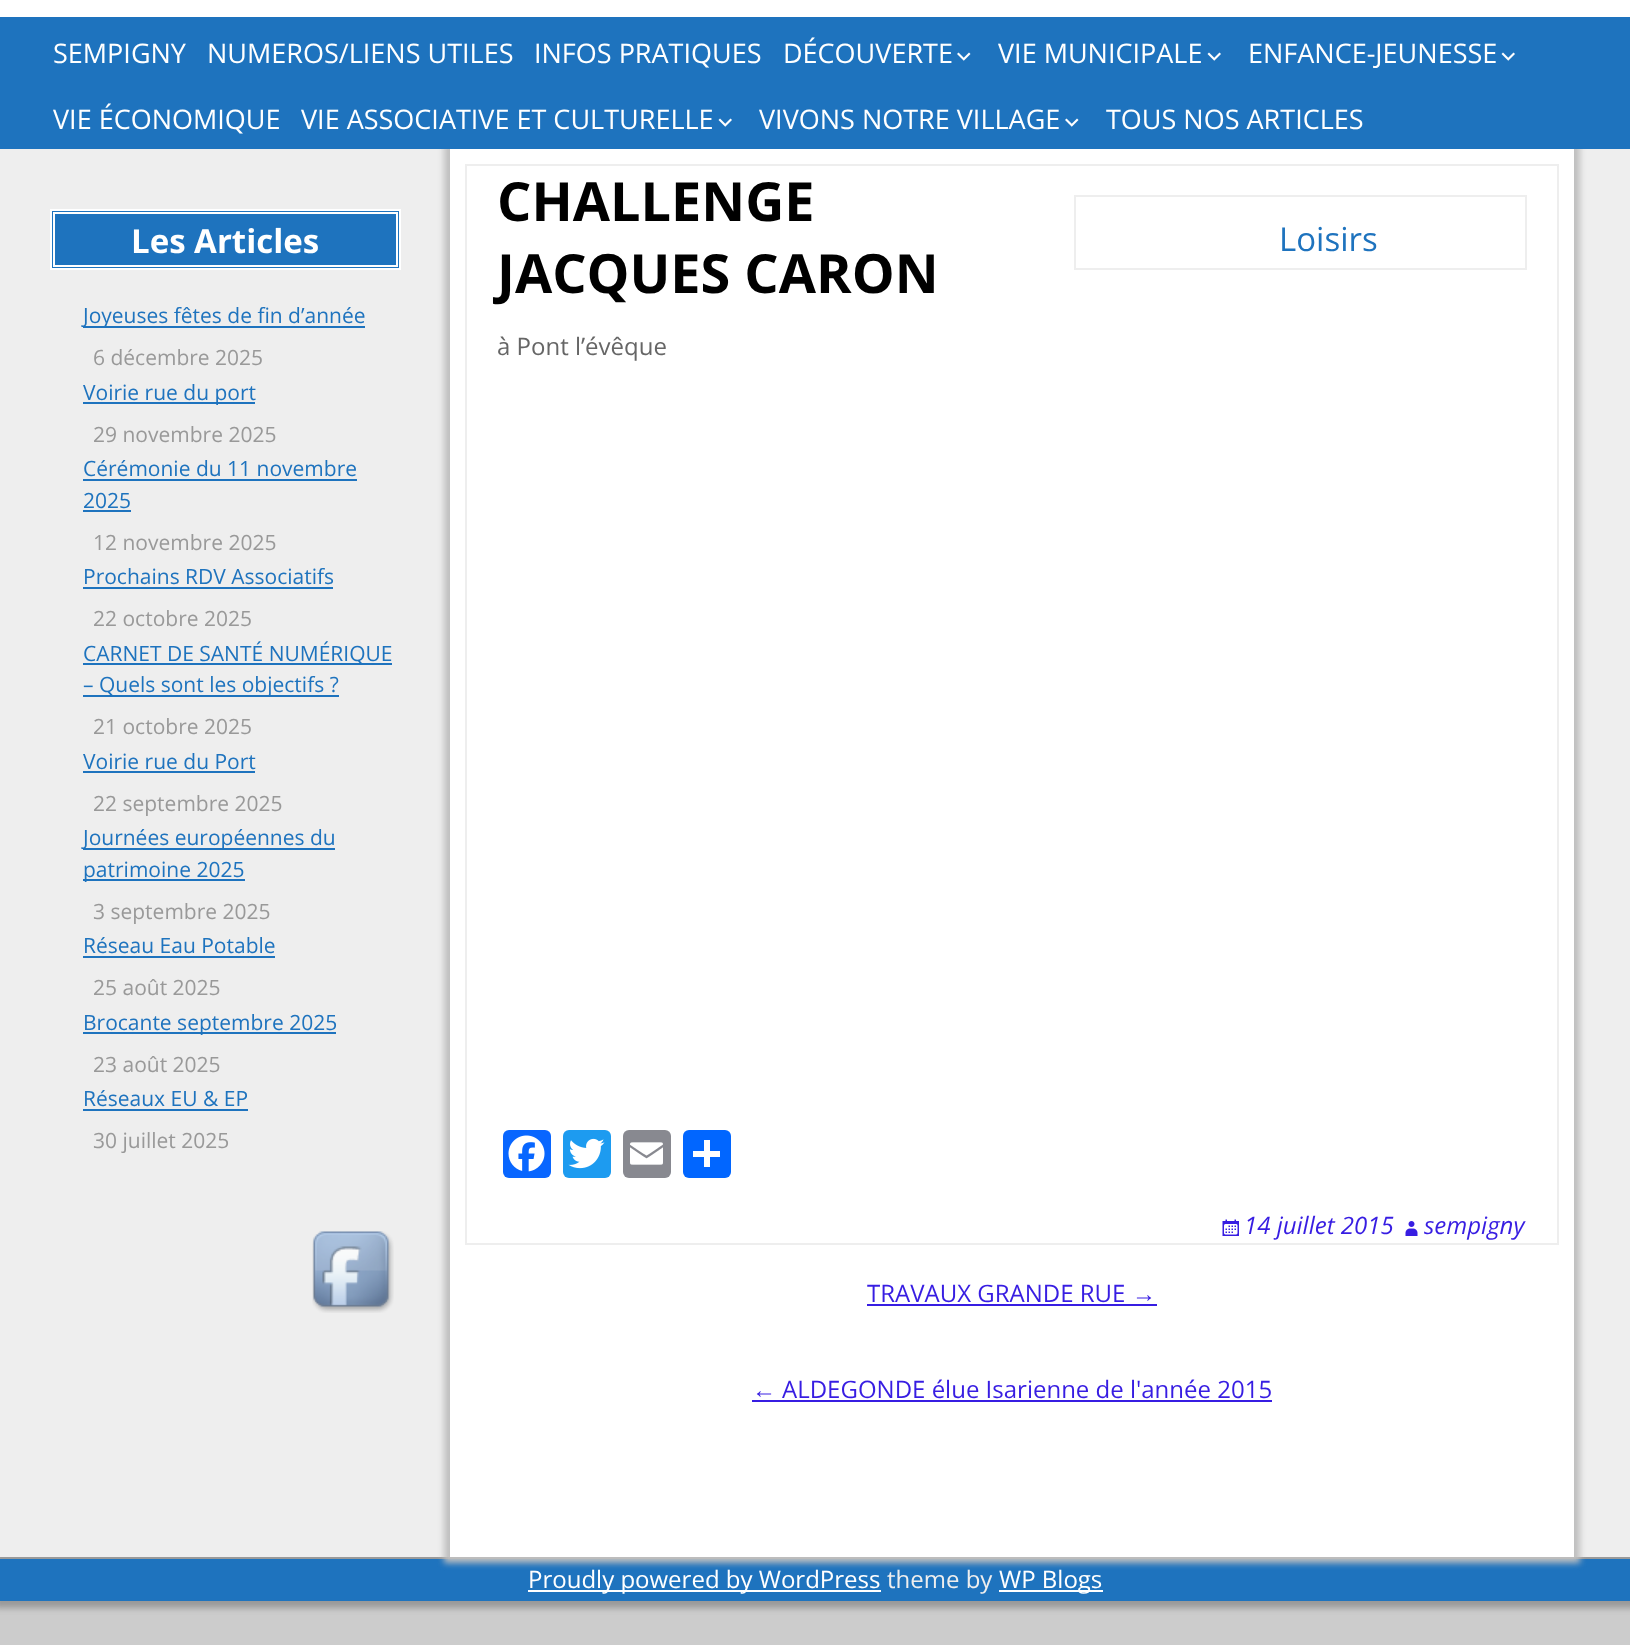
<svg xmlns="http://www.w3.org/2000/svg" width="1630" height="1645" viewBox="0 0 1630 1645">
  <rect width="100%" height="100%" fill="rgb(204,204,204)"/>
  <rect x="-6" y="-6" width="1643" height="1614" fill="rgb(153,153,153)" filter="blur(3px)"/>
  <rect x="0" y="149" width="1630" height="1408" fill="rgb(238,238,238)"/>
  <rect x="0" y="1559" width="1630" height="42" fill="rgb(30,115,190)"/>
  <rect x="444" y="143" width="1136" height="1420" fill="rgb(191,191,191)" filter="blur(3px)"/>
  <rect x="0" y="17" width="1630" height="132" fill="rgb(30,115,190)"/>
  <rect x="0" y="0" width="1630" height="17" fill="rgb(255,255,255)"/>
  <g font-family="Open Sans" font-size="27" fill="rgb(255,255,255)">
    <text x="53" y="63">SEMPIGNY</text>
    <text x="207" y="63">NUMEROS/LIENS UTILES</text>
    <text x="534" y="63">INFOS PRATIQUES</text>
    <text x="783" y="63">DÉCOUVERTE</text>
  </g>
  <image x="957" y="52" width="14" height="9" href="pic1.png"/>
  <text x="998" y="63" font-family="Open Sans" font-size="27" fill="rgb(255,255,255)">VIE MUNICIPALE</text>
  <image x="1207" y="52" width="14" height="9" href="pic2.png"/>
  <text x="1248" y="63" font-family="Open Sans" font-size="27" fill="rgb(255,255,255)">ENFANCE-JEUNESSE</text>
  <image x="1501" y="52" width="14" height="9" href="pic2.png"/>
  <g font-family="Open Sans" font-size="27" fill="rgb(255,255,255)">
    <text x="53" y="129">VIE ÉCONOMIQUE</text>
    <text x="301" y="129">VIE ASSOCIATIVE ET CULTURELLE</text>
  </g>
  <image x="718" y="118" width="14" height="9" href="pic2.png"/>
  <text x="759" y="129" font-family="Open Sans" font-size="27" fill="rgb(255,255,255)">VIVONS NOTRE VILLAGE</text>
  <image x="1065" y="118" width="14" height="9" href="pic1.png"/>
  <text x="1106" y="129" font-family="Open Sans" font-size="27" fill="rgb(255,255,255)">TOUS NOS ARTICLES</text>
  <rect x="51" y="210" width="349" height="59" fill="rgb(30,115,190)" stroke="rgb(255,255,255)" stroke-width="2"/>
  <rect x="54" y="213" width="343" height="53" fill="none" stroke="rgb(255,255,255)" stroke-width="2"/>
  <text x="131" y="253" font-family="Open Sans" font-size="33" font-weight="bold" fill="rgb(255,255,255)">Les Articles</text>
  <rect x="83" y="326" width="282" height="2" fill="rgb(30,115,190)"/>
  <text x="83" y="323" font-family="Open Sans" font-size="21" fill="rgb(30,115,190)">Joyeuses fêtes de fin d’année</text>
  <text x="93" y="365" font-family="Open Sans" font-size="21" fill="rgb(153,153,153)">6 décembre 2025</text>
  <rect x="83" y="402" width="172" height="2" fill="rgb(30,115,190)"/>
  <text x="83" y="400" font-family="Open Sans" font-size="21" fill="rgb(30,115,190)">Voirie rue du port</text>
  <text x="93" y="442" font-family="Open Sans" font-size="21" fill="rgb(153,153,153)">29 novembre 2025</text>
  <text x="83" y="476" font-family="Open Sans" font-size="21" fill="rgb(30,115,190)">Cérémonie du 11 novembre</text>
  <rect x="83" y="479" width="274" height="2" fill="rgb(30,115,190)"/>
  <text x="83" y="508" font-family="Open Sans" font-size="21" fill="rgb(30,115,190)">2025</text>
  <rect x="83" y="510" width="48" height="2" fill="rgb(30,115,190)"/>
  <text x="93" y="550" font-family="Open Sans" font-size="21" fill="rgb(153,153,153)">12 novembre 2025</text>
  <text x="83" y="584" font-family="Open Sans" font-size="21" fill="rgb(30,115,190)">Prochains RDV Associatifs</text>
  <rect x="83" y="587" width="250" height="2" fill="rgb(30,115,190)"/>
  <text x="93" y="626" font-family="Open Sans" font-size="21" fill="rgb(153,153,153)">22 octobre 2025</text>
  <rect x="83" y="663" width="309" height="2" fill="rgb(30,115,190)"/>
  <text x="83" y="661" font-family="Open Sans" font-size="21" fill="rgb(30,115,190)">CARNET DE SANTÉ NUMÉRIQUE</text>
  <rect x="83" y="695" width="256" height="2" fill="rgb(30,115,190)"/>
  <text x="83" y="692" font-family="Open Sans" font-size="21" fill="rgb(30,115,190)">– Quels sont les objectifs ?</text>
  <text x="93" y="734" font-family="Open Sans" font-size="21" fill="rgb(153,153,153)">21 octobre 2025</text>
  <text x="83" y="769" font-family="Open Sans" font-size="21" fill="rgb(30,115,190)">Voirie rue du Port</text>
  <rect x="83" y="771" width="172" height="2" fill="rgb(30,115,190)"/>
  <text x="93" y="811" font-family="Open Sans" font-size="21" fill="rgb(153,153,153)">22 septembre 2025</text>
  <rect x="83" y="848" width="252" height="2" fill="rgb(30,115,190)"/>
  <text x="83" y="845" font-family="Open Sans" font-size="21" fill="rgb(30,115,190)">Journées européennes du</text>
  <rect x="83" y="879" width="162" height="2" fill="rgb(30,115,190)"/>
  <text x="83" y="877" font-family="Open Sans" font-size="21" fill="rgb(30,115,190)">patrimoine 2025</text>
  <text x="93" y="919" font-family="Open Sans" font-size="21" fill="rgb(153,153,153)">3 septembre 2025</text>
  <text x="83" y="953" font-family="Open Sans" font-size="21" fill="rgb(30,115,190)">Réseau Eau Potable</text>
  <rect x="83" y="956" width="192" height="2" fill="rgb(30,115,190)"/>
  <text x="93" y="995" font-family="Open Sans" font-size="21" fill="rgb(153,153,153)">25 août 2025</text>
  <rect x="83" y="1032" width="253" height="2" fill="rgb(30,115,190)"/>
  <text x="83" y="1030" font-family="Open Sans" font-size="21" fill="rgb(30,115,190)">Brocante septembre 2025</text>
  <text x="93" y="1072" font-family="Open Sans" font-size="21" fill="rgb(153,153,153)">23 août 2025</text>
  <text x="83" y="1106" font-family="Open Sans" font-size="21" fill="rgb(30,115,190)">Réseaux EU &amp; EP</text>
  <rect x="83" y="1109" width="165" height="2" fill="rgb(30,115,190)"/>
  <text x="93" y="1148" font-family="Open Sans" font-size="21" fill="rgb(153,153,153)">30 juillet 2025</text>
  <image x="312" y="1231" width="82" height="82" href="pic3.png"/>
  <rect x="450" y="149" width="1124" height="1408" fill="rgb(255,255,255)"/>
  <rect x="466" y="165" width="1092" height="1079" fill="none" stroke="rgb(238,238,238)" stroke-width="2"/>
  <g font-family="Open Sans" font-size="54" font-weight="bold" fill="rgb(0,0,0)">
    <text>
      <tspan x="497" y="221">CHALLENGE</tspan>
      <tspan x="497" y="293">JACQUES CARON</tspan>
    </text>
  </g>
  <rect x="1075" y="196" width="451" height="73" fill="none" stroke="rgb(238,238,238)" stroke-width="2"/>
  <text x="1279" y="251" font-family="Open Sans" font-size="33" fill="rgb(30,115,190)">Loisirs</text>
  <text x="497" y="355" font-family="Open Sans" font-size="24" fill="rgb(102,102,102)">à Pont l’évêque</text>
  <rect x="503" y="1130" width="48" height="48" rx="6" fill="rgb(8,102,255)"/>
  <image x="508" y="1135" width="37" height="37" href="pic4.png"/>
  <rect x="563" y="1130" width="48" height="48" rx="6" fill="rgb(29,155,240)"/>
  <image x="568" y="1138" width="37" height="31" href="pic5.png"/>
  <rect x="623" y="1130" width="48" height="48" rx="6" fill="rgb(136,137,144)"/>
  <image x="630" y="1142" width="33" height="23" href="pic6.png"/>
  <rect x="683" y="1130" width="48" height="48" rx="6" fill="rgb(1,102,255)"/>
  <rect x="704" y="1140" width="6" height="27" fill="rgb(255,255,255)"/>
  <rect x="693" y="1151" width="27" height="6" fill="rgb(255,255,255)"/>
  <image x="1222" y="1219" width="17" height="17" href="pic7.png"/>
  <text x="1244" y="1234" font-family="Open Sans" font-size="24" font-style="italic" fill="rgb(55,29,226)">14 juillet 2015</text>
  <image x="1405" y="1221" width="13" height="15" href="pic8.png"/>
  <text x="1424" y="1234" font-family="Open Sans" font-size="24" font-style="italic" fill="rgb(55,29,226)">sempigny</text>
  <text x="867" y="1302" font-family="Open Sans" font-size="24" fill="rgb(55,29,226)">TRAVAUX GRANDE RUE</text>
  <text x="1132" y="1302" font-family="Liberation Sans" font-size="24" fill="rgb(55,29,226)">→</text>
  <rect x="867" y="1304" width="290" height="2" fill="rgb(55,29,226)"/>
  <text x="752" y="1398" font-family="Liberation Sans" font-size="24" fill="rgb(55,29,226)">←</text>
  <rect x="752" y="1400" width="520" height="2" fill="rgb(55,29,226)"/>
  <text x="782" y="1398" font-family="Open Sans" font-size="24" fill="rgb(55,29,226)">ALDEGONDE élue Isarienne de l'année 2015</text>
  <rect x="528" y="1590" width="353" height="2" fill="rgb(255,255,255)"/>
  <text x="528" y="1588" font-family="Open Sans" font-size="24" fill="rgb(255,255,255)">Proudly powered by WordPress</text>
  <text x="887" y="1588" font-family="Open Sans" font-size="24" fill="rgb(238,238,238)">theme by</text>
  <rect x="999" y="1590" width="104" height="2" fill="rgb(255,255,255)"/>
  <text x="999" y="1588" font-family="Open Sans" font-size="24" fill="rgb(255,255,255)">WP Blogs</text>
</svg>
